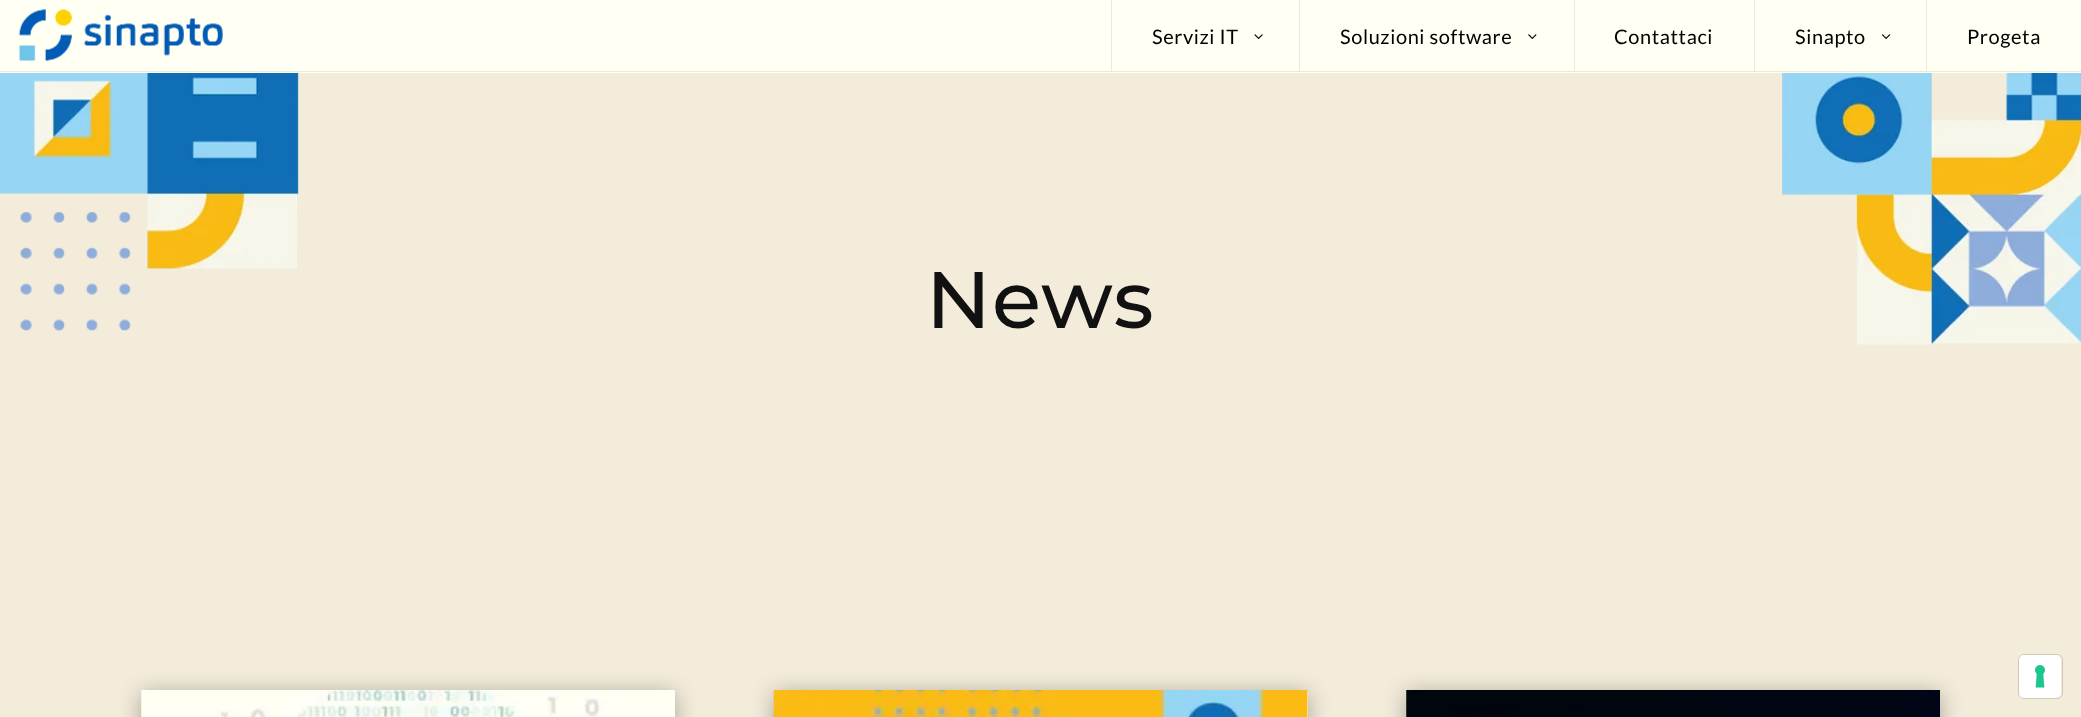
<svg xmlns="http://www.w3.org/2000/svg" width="2081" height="717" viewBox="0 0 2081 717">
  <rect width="100%" height="100%" fill="rgb(243,236,219)"/>
  <rect x="0" y="0" width="2081" height="73" fill="rgb(255,255,244)"/>
  <image x="18" y="9" width="205" height="52" href="pic1.png"/>
  <rect x="0" y="71" width="2081" height="1" fill="rgb(234,234,220)"/>
  <rect x="1111" y="0" width="1" height="71" fill="rgb(234,234,220)"/>
  <text x="1152" y="44" font-family="Lato" font-size="20" letter-spacing="0.6" fill="rgb(0,0,0)">Servizi IT</text>
  <image x="1254" y="34" width="9" height="5" href="pic2.png"/>
  <rect x="1299" y="0" width="1" height="71" fill="rgb(234,234,220)"/>
  <text x="1340" y="44" font-family="Lato" font-size="20" letter-spacing="0.6" fill="rgb(0,0,0)">Soluzioni software</text>
  <image x="1528" y="34" width="9" height="5" href="pic3.png"/>
  <rect x="1574" y="0" width="1" height="71" fill="rgb(234,234,220)"/>
  <text x="1614" y="44" font-family="Lato" font-size="20" letter-spacing="0.6" fill="rgb(0,0,0)">Contattaci</text>
  <rect x="1754" y="0" width="1" height="71" fill="rgb(234,234,220)"/>
  <text x="1795" y="44" font-family="Lato" font-size="20" letter-spacing="0.6" fill="rgb(0,0,0)">Sinapto</text>
  <image x="1882" y="34" width="9" height="5" href="pic4.png"/>
  <rect x="1926" y="0" width="1" height="71" fill="rgb(234,234,220)"/>
  <text x="1967" y="44" font-family="Lato" font-size="20" letter-spacing="0.6" fill="rgb(0,0,0)">Progeta</text>
  <image x="0" y="73" width="2081" height="272" href="pic5.png"/>
  <text x="926" y="328" font-family="Montserrat" font-size="80" font-weight="500" letter-spacing="1" fill="rgb(17,17,17)">News</text>
  <rect x="141" y="693" width="534" height="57" fill="rgba(0,0,0,0.3)" filter="blur(11px)"/>
  <image x="141" y="690" width="534" height="27" href="pic6.png"/>
  <rect x="774" y="693" width="534" height="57" fill="rgba(0,0,0,0.3)" filter="blur(11px)"/>
  <rect x="1307" y="691" width="1" height="26" fill="rgb(255,255,255)"/>
  <rect x="1307" y="690" width="1" height="1" fill="rgb(216,216,216)"/>
  <image x="773" y="690" width="535" height="27" href="pic7.png"/>
  <rect x="1406" y="693" width="534" height="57" fill="rgba(0,0,0,0.3)" filter="blur(11px)"/>
  <image x="1406" y="690" width="534" height="27" href="pic8.png"/>
  <rect x="2018.5" y="654.5" width="44" height="44" rx="5.5" fill="none" stroke="rgb(207,201,186)"/>
  <rect x="2019" y="655" width="42" height="43" rx="5" fill="rgb(255,255,255)"/>
  <image x="2035" y="665" width="10" height="23" href="pic9.png"/>
</svg>
